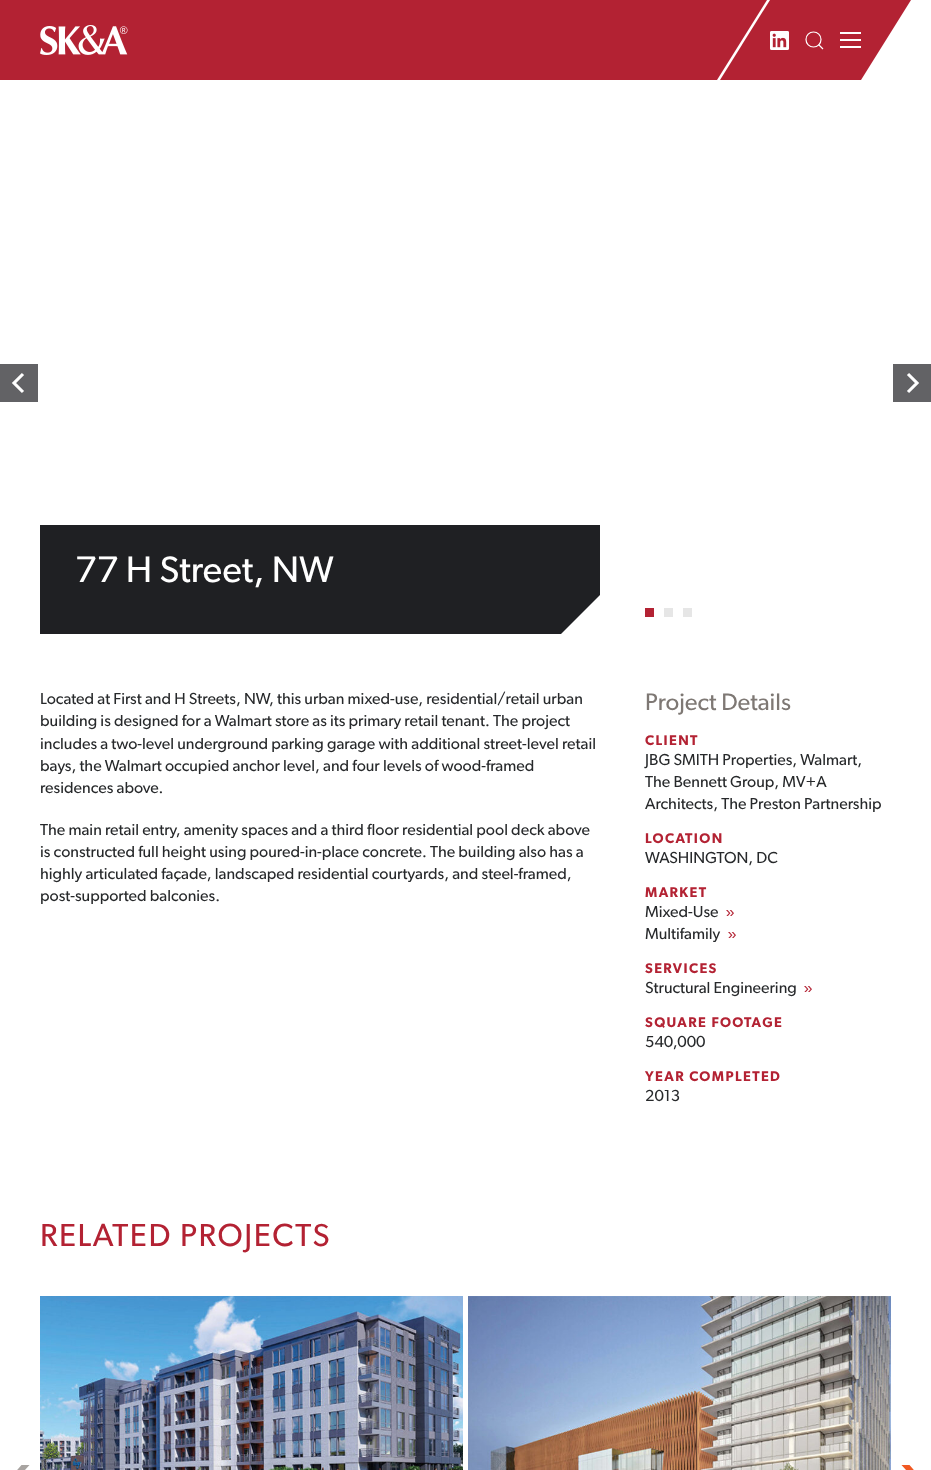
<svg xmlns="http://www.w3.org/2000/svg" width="931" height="1470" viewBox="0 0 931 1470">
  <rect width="100%" height="100%" fill="rgb(255,255,255)"/>
  <rect x="0" y="0" width="40" height="80" fill="rgb(179,34,51)"/>
  <path d="M40 0V80H717L767 0Z" fill="rgb(179,34,51)"/>
  <image x="40" y="25" width="88" height="30" href="pic1.png"/>
  <path d="M770 0L720 80H861L911 0Z" fill="rgb(179,34,51)"/>
  <image x="770" y="31" width="19" height="19" href="pic2.png"/>
  <circle cx="813.5" cy="39.5" r="7.5" fill="none" stroke="rgb(255,255,255)" stroke-width="1.2"/>
  <path d="M818.5 44.5L823 49Z" fill="none" stroke="rgb(255,255,255)" stroke-width="1.2"/>
  <rect x="840" y="32" width="21" height="2" fill="rgb(255,255,255)"/>
  <rect x="840" y="39" width="21" height="2" fill="rgb(255,255,255)"/>
  <rect x="840" y="46" width="21" height="2" fill="rgb(255,255,255)"/>
  <rect x="0" y="364" width="38" height="38" fill="rgb(98,98,101)"/>
  <path d="M23 374L14 383L23 392" fill="none" stroke="rgb(255,255,255)" stroke-width="3.1"/>
  <rect x="893" y="364" width="38" height="38" fill="rgb(98,98,101)"/>
  <path d="M908 392L917 383L908 374" fill="none" stroke="rgb(255,255,255)" stroke-width="3.1"/>
  <path d="M40 525V634H561L600 595V525Z" fill="rgb(31,32,35)"/>
  <text x="75" y="582" font-family="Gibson" font-size="37" fill="rgb(255,255,255)">77 H Street, NW</text>
  <rect x="645" y="608" width="9" height="9" fill="rgb(179,34,51)"/>
  <rect x="664" y="608" width="9" height="9" fill="rgb(230,230,230)"/>
  <rect x="683" y="608" width="9" height="9" fill="rgb(230,230,230)"/>
  <g font-family="Gibson" font-size="16" fill="rgb(39,41,43)">
    <text>
      <tspan x="40" y="704">Located at First and H Streets, NW, this urban mixed-use, residential/retail urban</tspan>
      <tspan x="40" y="726">building is designed for a Walmart store as its primary retail tenant. The project</tspan>
      <tspan x="40" y="749">includes a two-level underground parking garage with additional street-level retail</tspan>
      <tspan x="40" y="771">bays, the Walmart occupied anchor level, and four levels of wood-framed</tspan>
      <tspan x="40" y="793">residences above.</tspan>
    </text>
    <text>
      <tspan x="40" y="835">The main retail entry, amenity spaces and a third floor residential pool deck above</tspan>
      <tspan x="40" y="857">is constructed full height using poured-in-place concrete. The building also has a</tspan>
      <tspan x="40" y="879">highly articulated façade, landscaped residential courtyards, and steel-framed,</tspan>
      <tspan x="40" y="901">post-supported balconies.</tspan>
    </text>
  </g>
  <text x="645" y="710" font-family="Gibson" font-size="24" fill="rgb(126,120,116)">Project Details</text>
  <text x="645" y="745" font-family="Gibson" font-size="14" font-weight="600" letter-spacing="1.4" fill="rgb(179,34,51)">CLIENT</text>
  <g font-family="Gibson" font-size="16" fill="rgb(39,41,43)">
    <text>
      <tspan x="645" y="765">JBG SMITH Properties, Walmart,</tspan>
      <tspan x="645" y="787">The Bennett Group, MV+A</tspan>
      <tspan x="645" y="809">Architects, The Preston Partnership</tspan>
    </text>
  </g>
  <text x="645" y="843" font-family="Gibson" font-size="14" font-weight="600" letter-spacing="1.4" fill="rgb(179,34,51)">LOCATION</text>
  <text x="645" y="863" font-family="Gibson" font-size="16" fill="rgb(39,41,43)">WASHINGTON, DC</text>
  <text x="645" y="897" font-family="Gibson" font-size="14" font-weight="600" letter-spacing="1.4" fill="rgb(179,34,51)">MARKET</text>
  <text x="645" y="917" font-family="Gibson" font-size="16" fill="rgb(39,41,43)">Mixed-Use</text>
  <image x="726" y="910" width="8" height="6" href="pic3.png"/>
  <text x="645" y="939" font-family="Gibson" font-size="16" fill="rgb(39,41,43)">Multifamily</text>
  <image x="728" y="932" width="8" height="6" href="pic3.png"/>
  <text x="645" y="973" font-family="Gibson" font-size="14" font-weight="600" letter-spacing="1.4" fill="rgb(179,34,51)">SERVICES</text>
  <text x="645" y="993" font-family="Gibson" font-size="16" fill="rgb(39,41,43)">Structural Engineering</text>
  <image x="804" y="986" width="8" height="6" href="pic3.png"/>
  <text x="645" y="1027" font-family="Gibson" font-size="14" font-weight="600" letter-spacing="1.4" fill="rgb(179,34,51)">SQUARE FOOTAGE</text>
  <text x="645" y="1047" font-family="Gibson" font-size="16" fill="rgb(39,41,43)">540,000</text>
  <text x="645" y="1081" font-family="Gibson" font-size="14" font-weight="600" letter-spacing="1.4" fill="rgb(179,34,51)">YEAR COMPLETED</text>
  <text x="645" y="1101" font-family="Gibson" font-size="16" fill="rgb(39,41,43)">2013</text>
  <text x="40" y="1246" font-family="Gibson" font-size="32" letter-spacing="1.6" fill="rgb(179,34,51)">RELATED PROJECTS</text>
  <image x="40" y="1296" width="423" height="174" href="pic4.png"/>
  <image x="468" y="1296" width="423" height="174" href="pic5.png"/>
  <path d="M29.5 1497H21.5L7.5 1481L21.5 1465H29.5L15 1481Z" fill="rgb(168,164,161)"/>
  <path d="M923.5 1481L909.5 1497H901.5L916 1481L901.5 1465H909.5Z" fill="rgb(241,88,34)"/>
</svg>
